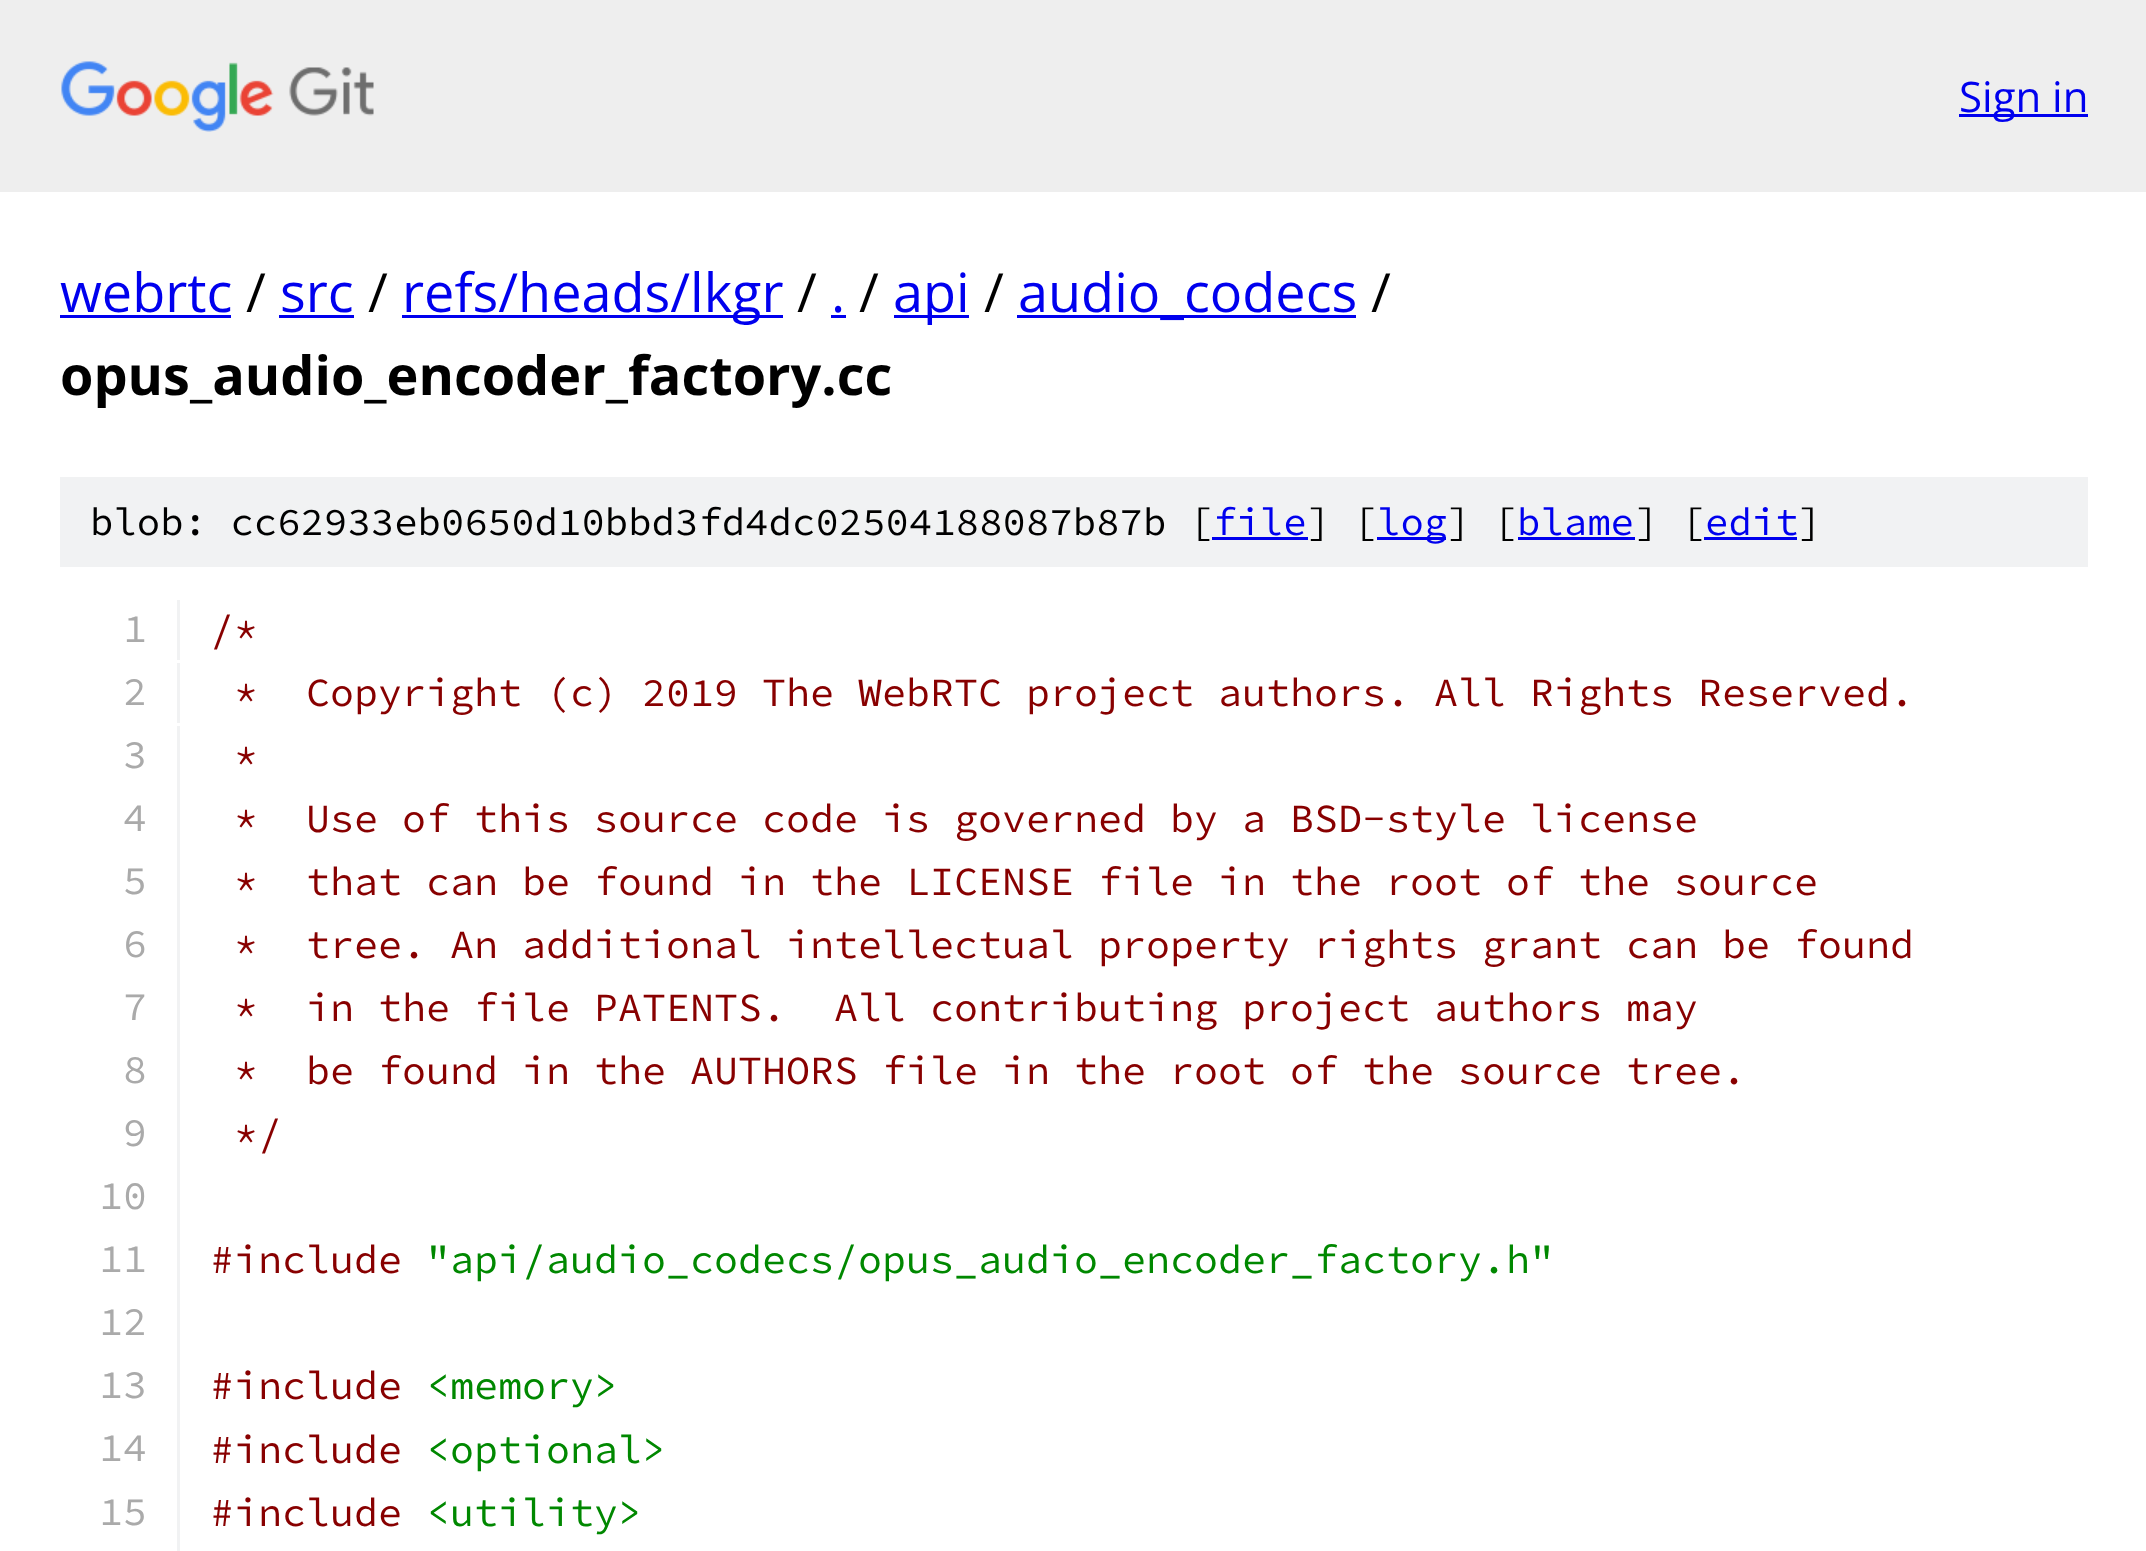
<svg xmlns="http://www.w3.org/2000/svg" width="2146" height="1551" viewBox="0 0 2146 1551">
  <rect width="100%" height="100%" fill="rgb(255,255,255)"/>
  <rect x="0" y="0" width="2146" height="192" fill="rgb(238,238,238)"/>
  <image x="61" y="61" width="313" height="71" href="pic1.png"/>
  <rect x="1959" y="114" width="129" height="3" fill="rgb(0,0,238)"/>
  <text x="1959" y="112" font-family="Open Sans" font-size="42" fill="rgb(0,0,238)">Sign in</text>
  <text x="60" y="312" font-family="Open Sans" font-size="54" fill="rgb(0,0,238)">webrtc</text>
  <rect x="60" y="315" width="171" height="3" fill="rgb(0,0,238)"/>
  <text x="246" y="312" font-family="Open Sans" font-size="54" fill="rgb(0,0,0)">/</text>
  <text x="280" y="312" font-family="Open Sans" font-size="54" fill="rgb(0,0,238)">src</text>
  <rect x="279" y="315" width="75" height="3" fill="rgb(0,0,238)"/>
  <text x="368" y="312" font-family="Open Sans" font-size="54" fill="rgb(0,0,0)">/</text>
  <rect x="402" y="315" width="381" height="3" fill="rgb(0,0,238)"/>
  <text x="402" y="312" font-family="Open Sans" font-size="54" fill="rgb(0,0,238)">refs/heads/lkgr</text>
  <text x="797" y="312" font-family="Open Sans" font-size="54" fill="rgb(0,0,0)">/</text>
  <text x="831" y="312" font-family="Open Sans" font-size="54" fill="rgb(0,0,238)">.</text>
  <rect x="831" y="315" width="15" height="3" fill="rgb(0,0,238)"/>
  <text x="859" y="312" font-family="Open Sans" font-size="54" fill="rgb(0,0,0)">/</text>
  <rect x="894" y="315" width="75" height="3" fill="rgb(0,0,238)"/>
  <text x="893" y="312" font-family="Open Sans" font-size="54" fill="rgb(0,0,238)">api</text>
  <text x="984" y="312" font-family="Open Sans" font-size="54" fill="rgb(0,0,0)">/</text>
  <rect x="1017" y="315" width="339" height="3" fill="rgb(0,0,238)"/>
  <text x="1018" y="312" font-family="Open Sans" font-size="54" fill="rgb(0,0,238)">audio_codecs</text>
  <text x="1371" y="312" font-family="Open Sans" font-size="54" fill="rgb(0,0,0)">/</text>
  <text x="60" y="395" font-family="Open Sans" font-size="54" font-weight="bold" fill="rgb(0,0,0)">opus_audio_encoder_factory.cc</text>
  <rect x="60" y="477" width="2028" height="90" fill="rgb(241,242,243)"/>
  <text x="90" y="535" font-family="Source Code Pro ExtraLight" font-size="39" font-weight="200" fill="rgb(0,0,0)">blob: cc62933eb0650d10bbd3fd4dc02504188087b87b [</text>
  <text x="1213" y="535" font-family="Source Code Pro ExtraLight" font-size="39" font-weight="200" fill="rgb(0,0,238)">file</text>
  <rect x="1212" y="537" width="96" height="3" fill="rgb(0,0,238)"/>
  <text x="1307" y="535" font-family="Source Code Pro ExtraLight" font-size="39" font-weight="200" fill="rgb(0,0,0)">] [</text>
  <rect x="1377" y="537" width="69" height="3" fill="rgb(0,0,238)"/>
  <text x="1377" y="535" font-family="Source Code Pro ExtraLight" font-size="39" font-weight="200" fill="rgb(0,0,238)">log</text>
  <text x="1447" y="535" font-family="Source Code Pro ExtraLight" font-size="39" font-weight="200" fill="rgb(0,0,0)">] [</text>
  <text x="1517" y="535" font-family="Source Code Pro ExtraLight" font-size="39" font-weight="200" fill="rgb(0,0,238)">blame</text>
  <rect x="1518" y="537" width="117" height="3" fill="rgb(0,0,238)"/>
  <text x="1635" y="535" font-family="Source Code Pro ExtraLight" font-size="39" font-weight="200" fill="rgb(0,0,0)">] [</text>
  <text x="1705" y="535" font-family="Source Code Pro ExtraLight" font-size="39" font-weight="200" fill="rgb(0,0,238)">edit</text>
  <rect x="1704" y="537" width="93" height="3" fill="rgb(0,0,238)"/>
  <text x="1798" y="535" font-family="Source Code Pro ExtraLight" font-size="39" font-weight="200" fill="rgb(0,0,0)">]</text>
  <rect x="177" y="600" width="3" height="60" fill="rgb(241,242,243)"/>
  <text x="123" y="642" font-family="Source Code Pro ExtraLight" font-size="40" font-weight="200" fill="rgb(170,170,170)">1</text>
  <text x="210" y="643" font-family="Source Code Pro ExtraLight" font-size="40" font-weight="200" fill="rgb(136,0,0)">/*</text>
  <rect x="177" y="663" width="3" height="60" fill="rgb(241,242,243)"/>
  <text x="123" y="705" font-family="Source Code Pro ExtraLight" font-size="40" font-weight="200" fill="rgb(170,170,170)">2</text>
  <text x="234" y="706" font-family="Source Code Pro ExtraLight" font-size="40" font-weight="200" fill="rgb(136,0,0)" xml:space="preserve">*  Copyright (c) 2019 The WebRTC project authors. All Rights Reserved.</text>
  <rect x="177" y="726" width="3" height="825" fill="rgb(241,242,243)"/>
  <text x="123" y="768" font-family="Source Code Pro ExtraLight" font-size="40" font-weight="200" fill="rgb(170,170,170)">3</text>
  <text x="234" y="769" font-family="Source Code Pro ExtraLight" font-size="40" font-weight="200" fill="rgb(136,0,0)">*</text>
  <text x="123" y="831" font-family="Source Code Pro ExtraLight" font-size="40" font-weight="200" fill="rgb(170,170,170)">4</text>
  <text x="234" y="832" font-family="Source Code Pro ExtraLight" font-size="40" font-weight="200" fill="rgb(136,0,0)" xml:space="preserve">*  Use of this source code is governed by a BSD-style license</text>
  <text x="123" y="894" font-family="Source Code Pro ExtraLight" font-size="40" font-weight="200" fill="rgb(170,170,170)">5</text>
  <text x="234" y="895" font-family="Source Code Pro ExtraLight" font-size="40" font-weight="200" fill="rgb(136,0,0)" xml:space="preserve">*  that can be found in the LICENSE file in the root of the source</text>
  <text x="123" y="957" font-family="Source Code Pro ExtraLight" font-size="40" font-weight="200" fill="rgb(170,170,170)">6</text>
  <text x="234" y="958" font-family="Source Code Pro ExtraLight" font-size="40" font-weight="200" fill="rgb(136,0,0)" xml:space="preserve">*  tree. An additional intellectual property rights grant can be found</text>
  <text x="123" y="1020" font-family="Source Code Pro ExtraLight" font-size="40" font-weight="200" fill="rgb(170,170,170)">7</text>
  <text x="234" y="1021" font-family="Source Code Pro ExtraLight" font-size="40" font-weight="200" fill="rgb(136,0,0)" xml:space="preserve">*  in the file PATENTS.  All contributing project authors may</text>
  <text x="123" y="1083" font-family="Source Code Pro ExtraLight" font-size="40" font-weight="200" fill="rgb(170,170,170)">8</text>
  <text x="234" y="1084" font-family="Source Code Pro ExtraLight" font-size="40" font-weight="200" fill="rgb(136,0,0)" xml:space="preserve">*  be found in the AUTHORS file in the root of the source tree.</text>
  <text x="123" y="1146" font-family="Source Code Pro ExtraLight" font-size="40" font-weight="200" fill="rgb(170,170,170)">9</text>
  <text x="234" y="1147" font-family="Source Code Pro ExtraLight" font-size="40" font-weight="200" fill="rgb(136,0,0)">*/</text>
  <g font-family="Source Code Pro ExtraLight" font-size="40" font-weight="200" fill="rgb(170,170,170)">
    <text>
      <tspan x="99" y="1209">10</tspan>
      <tspan x="99" y="1272">11</tspan>
    </text>
  </g>
  <text x="210" y="1273" font-family="Source Code Pro ExtraLight" font-size="40" font-weight="200" fill="rgb(136,0,0)">#include</text>
  <text x="426" y="1273" font-family="Source Code Pro ExtraLight" font-size="40" font-weight="200" fill="rgb(0,136,0)">"api/audio_codecs/opus_audio_encoder_factory.h"</text>
  <g font-family="Source Code Pro ExtraLight" font-size="40" font-weight="200" fill="rgb(170,170,170)">
    <text>
      <tspan x="99" y="1335">12</tspan>
      <tspan x="99" y="1398">13</tspan>
    </text>
  </g>
  <text x="210" y="1399" font-family="Source Code Pro ExtraLight" font-size="40" font-weight="200" fill="rgb(136,0,0)">#include</text>
  <text x="426" y="1399" font-family="Source Code Pro ExtraLight" font-size="40" font-weight="200" fill="rgb(0,136,0)">&lt;memory&gt;</text>
  <text x="99" y="1461" font-family="Source Code Pro ExtraLight" font-size="40" font-weight="200" fill="rgb(170,170,170)">14</text>
  <text x="210" y="1463" font-family="Source Code Pro ExtraLight" font-size="40" font-weight="200" fill="rgb(136,0,0)">#include</text>
  <text x="426" y="1463" font-family="Source Code Pro ExtraLight" font-size="40" font-weight="200" fill="rgb(0,136,0)">&lt;optional&gt;</text>
  <text x="99" y="1525" font-family="Source Code Pro ExtraLight" font-size="40" font-weight="200" fill="rgb(170,170,170)">15</text>
  <text x="210" y="1526" font-family="Source Code Pro ExtraLight" font-size="40" font-weight="200" fill="rgb(136,0,0)">#include</text>
  <text x="426" y="1526" font-family="Source Code Pro ExtraLight" font-size="40" font-weight="200" fill="rgb(0,136,0)">&lt;utility&gt;</text>
</svg>
